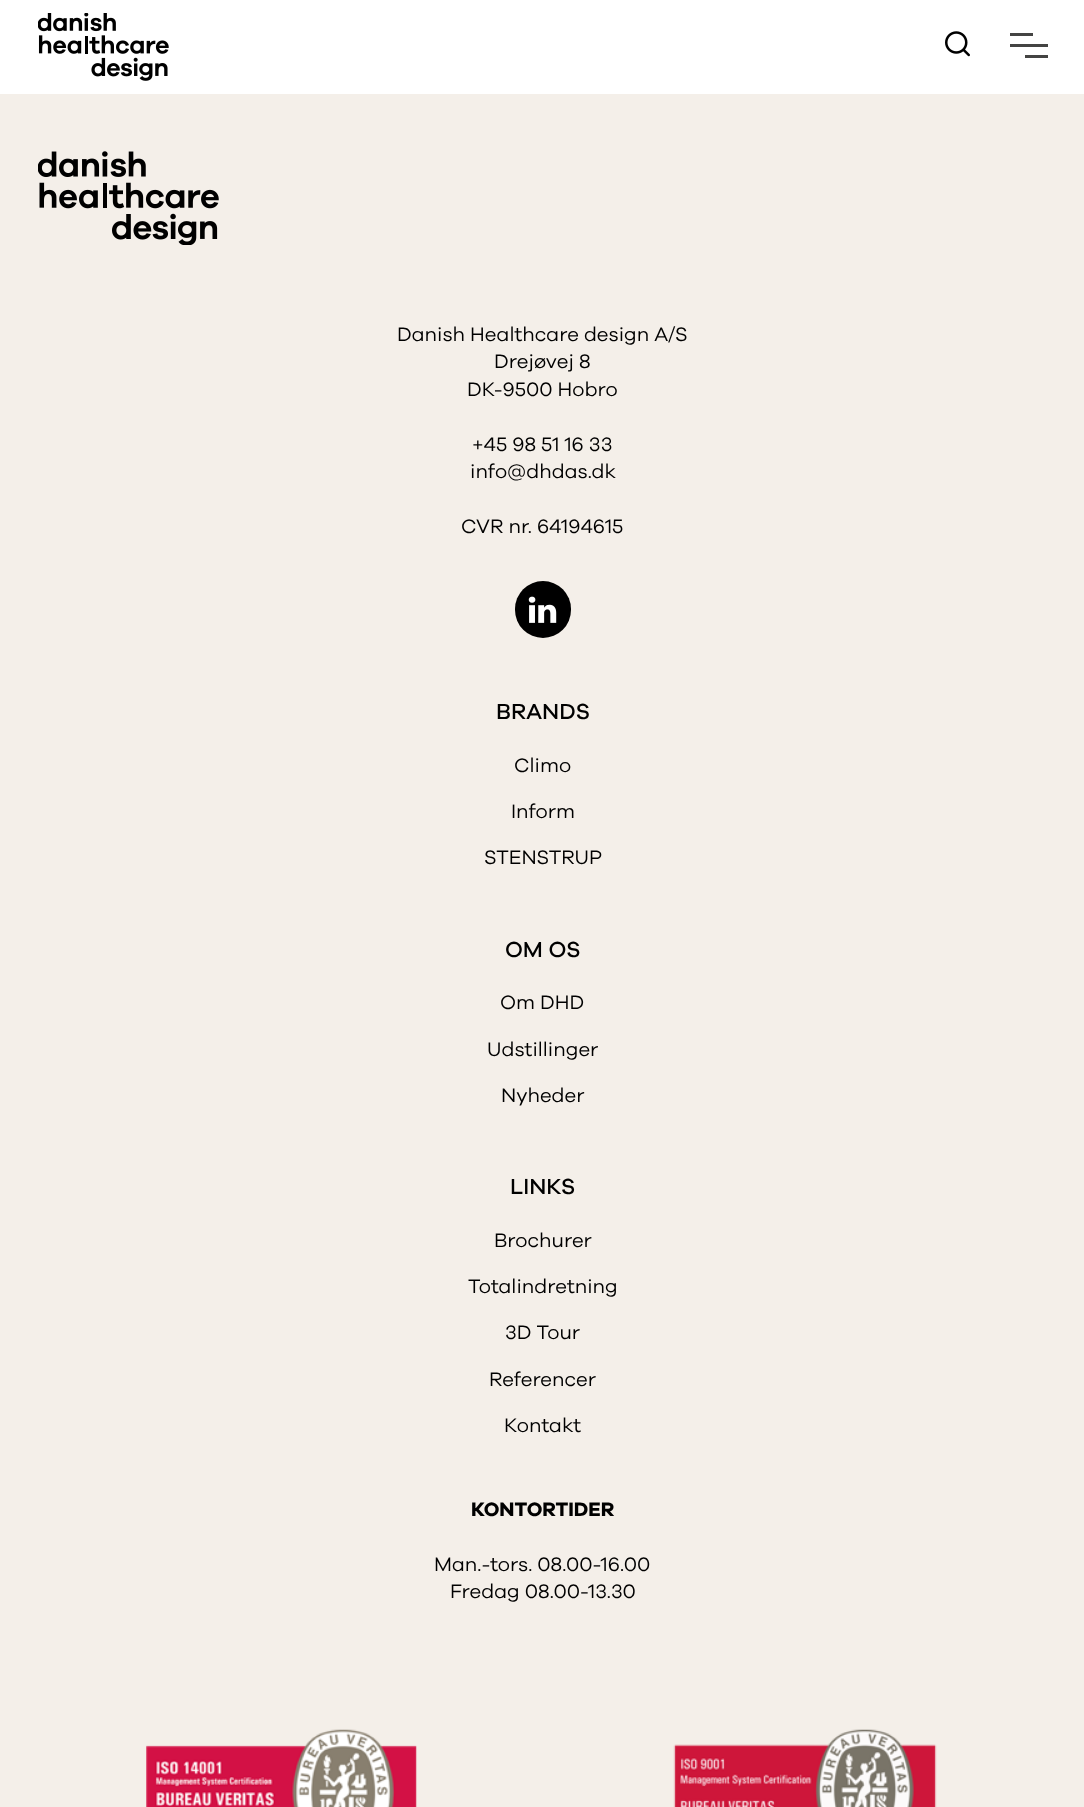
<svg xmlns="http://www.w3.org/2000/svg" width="1084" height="1807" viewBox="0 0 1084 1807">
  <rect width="100%" height="100%" fill="rgb(244,239,233)"/>
  <rect x="0" y="0" width="1084" height="94" fill="rgb(255,255,255)"/>
  <image x="38" y="13" width="131" height="68" href="pic1.png"/>
  <image x="945" y="31" width="25" height="26" href="pic2.png"/>
  <rect x="1010" y="33" width="23" height="3" fill="rgb(68,68,67)"/>
  <rect x="1010" y="44" width="38" height="3" fill="rgb(68,68,67)"/>
  <rect x="1025" y="55" width="23" height="3" fill="rgb(68,68,67)"/>
  <image x="38" y="151" width="181" height="94" href="pic3.png"/>
  <g font-family="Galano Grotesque" font-size="20" fill="rgb(0,0,0)">
    <text x="397" y="341">Danish Healthcare design A/S</text>
    <text x="494" y="368">Drejøvej 8</text>
    <text x="467" y="396">DK-9500 Hobro</text>
    <text x="472" y="451">+45 98 51 16 33</text>
    <text x="470" y="478">info@dhdas.dk</text>
    <text x="461" y="533">CVR nr. 64194615</text>
  </g>
  <text x="496" y="719" font-family="Galano Grotesque" font-size="22.5" font-weight="500" fill="rgb(0,0,0)">BRANDS</text>
  <g font-family="Galano Grotesque" font-size="20" fill="rgb(0,0,0)">
    <text x="514" y="772">Climo</text>
    <text x="511" y="818">Inform</text>
    <text x="484" y="864">STENSTRUP</text>
  </g>
  <text x="505" y="957" font-family="Galano Grotesque" font-size="22.5" font-weight="500" fill="rgb(0,0,0)">OM OS</text>
  <g font-family="Galano Grotesque" font-size="20" fill="rgb(0,0,0)">
    <text x="500" y="1009">Om DHD</text>
    <text x="487" y="1056">Udstillinger</text>
    <text x="501" y="1102">Nyheder</text>
  </g>
  <text x="510" y="1194" font-family="Galano Grotesque" font-size="22.5" font-weight="500" fill="rgb(0,0,0)">LINKS</text>
  <g font-family="Galano Grotesque" font-size="20" fill="rgb(0,0,0)">
    <text x="494" y="1247">Brochurer</text>
    <text x="468" y="1293">Totalindretning</text>
    <text x="505" y="1339">3D Tour</text>
    <text x="489" y="1386">Referencer</text>
    <text x="504" y="1432">Kontakt</text>
  </g>
  <text x="471" y="1516" font-family="Galano Grotesque" font-size="20" font-weight="bold" fill="rgb(0,0,0)">KONTORTIDER</text>
  <g font-family="Galano Grotesque" font-size="20" fill="rgb(0,0,0)">
    <text x="434" y="1571">Man.-tors. 08.00-16.00</text>
    <text x="450" y="1598">Fredag 08.00-13.30</text>
  </g>
  <image x="146" y="1729" width="271" height="78" href="pic4.png"/>
  <image x="673" y="1729" width="264" height="78" href="pic5.png"/>
  <rect x="515" y="581" width="56" height="57" rx="28" fill="rgb(0,0,0)"/>
  <image x="528" y="596" width="29" height="27" href="pic6.png"/>
</svg>
